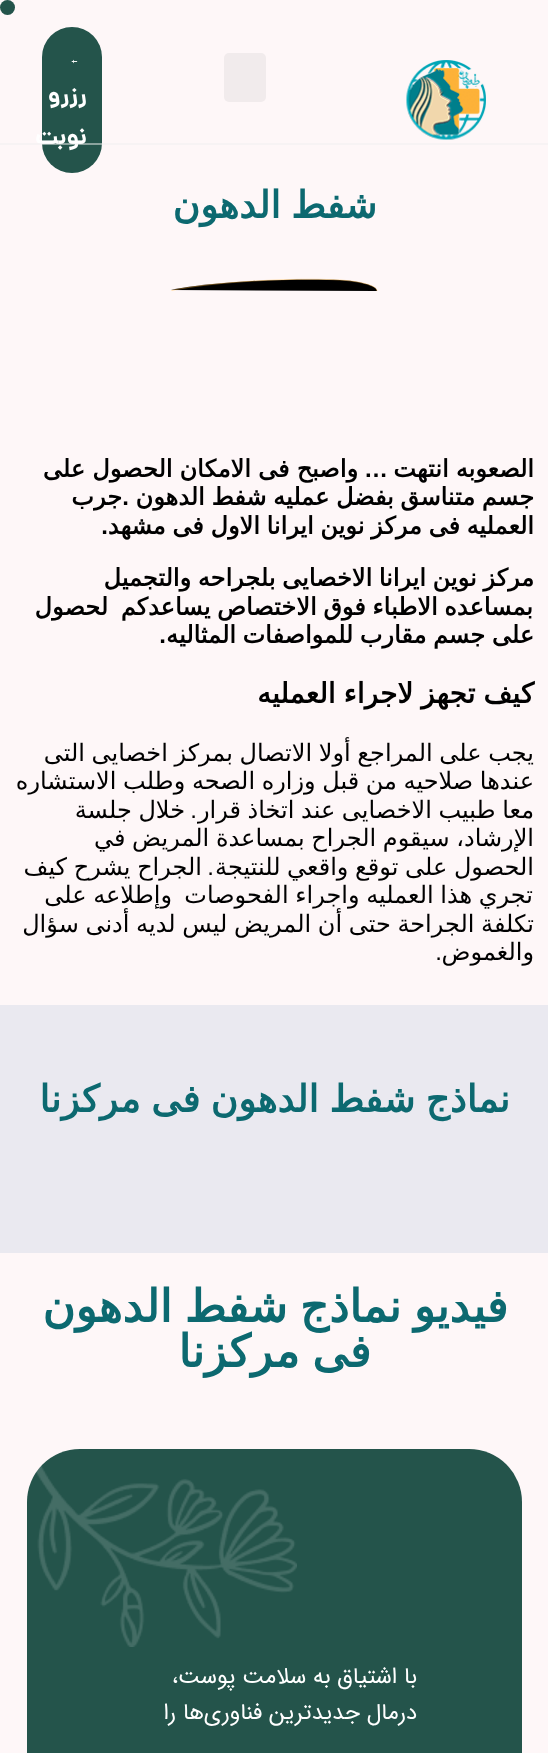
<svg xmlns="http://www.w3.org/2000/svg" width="548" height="1753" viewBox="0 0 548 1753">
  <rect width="100%" height="100%" fill="rgb(254,247,248)"/>
  <circle cx="7.5" cy="7.5" r="7.5" fill="rgb(36,84,75)"/>
  <image x="406" y="60" width="80" height="80" href="pic1.png"/>
  <rect x="224" y="53" width="42" height="49" rx="5" fill="rgb(241,235,236)"/>
  <rect x="42" y="27" width="60" height="146" rx="30" fill="rgb(36,84,75)"/>
  <image x="71" y="59" width="7" height="5" href="pic2.png"/>
  <g font-family="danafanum" font-size="24" font-weight="bold" direction="rtl" fill="rgb(255,255,255)">
    <text>
      <tspan x="87" y="102">رزرو</tspan>
      <tspan x="87" y="144">نوبت</tspan>
    </text>
  </g>
  <rect x="0" y="143" width="548" height="2" fill="rgba(239,239,239,0.5)"/>
  <text x="377" y="218" word-spacing="-1.5" font-family="DejaVu Sans" font-size="37.5" font-weight="bold" direction="rtl" fill="rgb(12,105,112)">شفط الدهون</text>
  <path d="M171 290C215 281 296 278 340 280C358 281 377 285 377 291" fill="rgb(0,0,0)"/>
  <path d="M171.5 290.5C214.5 281.5 296.5 277.5 339.5 280C357.5 281 377 285 377 291" fill="none" stroke="rgb(252,178,57)" stroke-width="0.4"/>
  <text x="534" y="477" word-spacing="-0.5" font-family="DejaVu Sans" font-size="24" font-weight="bold" direction="rtl" fill="rgb(0,0,0)">الصعوبه انتهت</text>
  <text x="388" y="477" font-family="Liberation Sans" font-size="24" font-weight="bold" direction="rtl" fill="rgb(0,0,0)">…</text>
  <g font-family="DejaVu Sans" font-size="24" font-weight="bold" direction="rtl" fill="rgb(0,0,0)">
    <text x="358" y="477" word-spacing="-0.5">واصبح فی الامکان الحصول علی</text>
    <text x="534" y="505" word-spacing="-1">جسم متناسق بفضل عملیه شفط الدهون</text>
  </g>
  <text x="129" y="505" font-family="Liberation Sans" font-size="24" font-weight="bold" direction="rtl" fill="rgb(0,0,0)">.</text>
  <g font-family="DejaVu Sans" font-size="24" font-weight="bold" direction="rtl" fill="rgb(0,0,0)">
    <text x="122" y="505">جرب</text>
    <text x="534" y="534" word-spacing="-1">العملیه فی مرکز نوین ایرانا الاول فی مشهد</text>
  </g>
  <text x="108" y="534" font-family="Liberation Sans" font-size="24" font-weight="bold" direction="rtl" fill="rgb(0,0,0)">.</text>
  <g font-family="DejaVu Sans" font-size="24" font-weight="bold" direction="rtl" fill="rgb(0,0,0)">
    <text x="534" y="586" word-spacing="-1">مرکز نوین ایرانا الاخصایی بلجراحه والتجمیل</text>
    <text x="533" y="615" word-spacing="-1">بمساعده الاطباء فوق الاختصاص یساعدکم</text>
    <text x="108" y="615">لحصول</text>
    <text x="534" y="643" word-spacing="-1">علی جسم مقارب للمواصفات المثالیه</text>
  </g>
  <text x="166" y="643" font-family="Liberation Sans" font-size="24" font-weight="bold" direction="rtl" fill="rgb(0,0,0)">.</text>
  <text x="534" y="703" word-spacing="-1" font-family="DejaVu Sans" font-size="28" font-weight="bold" direction="rtl" fill="rgb(0,0,0)">كيف تجهز لاجراء العملیه</text>
  <g font-family="DejaVu Sans" font-size="24" direction="rtl" fill="rgb(0,0,0)">
    <text>
      <tspan x="534" y="761" word-spacing="-1">يجب على المراجع أولا الاتصال بمرکز اخصایی التی</tspan>
      <tspan x="534" y="789" word-spacing="-1">عندها صلاحیه من قبل وزاره الصحه وطلب الاستشاره</tspan>
      <tspan x="534" y="818" word-spacing="-1">معا طبیب الاخصایی عند اتخاذ قرار</tspan>
    </text>
  </g>
  <text x="197" y="818" font-family="Liberation Sans" font-size="24" direction="rtl" fill="rgb(0,0,0)">.</text>
  <g font-family="DejaVu Sans" font-size="24" direction="rtl" fill="rgb(0,0,0)">
    <text x="185" y="818" word-spacing="-1">خلال جلسة</text>
    <text>
      <tspan x="534" y="846" word-spacing="-1">الإرشاد، سيقوم الجراح بمساعدة المريض في</tspan>
      <tspan x="534" y="875" word-spacing="-1">الحصول على توقع واقعي للنتيجة</tspan>
    </text>
  </g>
  <text x="214" y="875" font-family="Liberation Sans" font-size="24" direction="rtl" fill="rgb(0,0,0)">.</text>
  <g font-family="DejaVu Sans" font-size="24" direction="rtl" fill="rgb(0,0,0)">
    <text x="202" y="875" word-spacing="-1">الجراح يشرح كيف</text>
    <text x="533" y="903" word-spacing="-1">تجري هذا العمليه واجراء الفحوصات</text>
    <text x="172" y="903" word-spacing="-1">وإطلاعه على</text>
    <text>
      <tspan x="534" y="932" word-spacing="-1">تكلفة الجراحة حتى أن المريض ليس لديه أدنى سؤال</tspan>
      <tspan x="534" y="960">والغموض</tspan>
    </text>
  </g>
  <text x="442" y="960" font-family="Liberation Sans" font-size="24" direction="rtl" fill="rgb(0,0,0)">.</text>
  <rect x="0" y="1005" width="548" height="248" fill="rgb(234,233,240)"/>
  <text x="510" y="1112" word-spacing="-1.5" font-family="DejaVu Sans" font-size="37.5" font-weight="bold" direction="rtl" fill="rgb(12,105,112)">نماذج شفط الدهون فی مرکزنا</text>
  <g font-family="DejaVu Sans" font-size="45" font-weight="bold" direction="rtl" fill="rgb(12,105,112)">
    <text x="508" y="1322" word-spacing="-2">فيديو نماذج شفط الدهون</text>
    <text x="371" y="1367" word-spacing="-2">فی مرکزنا</text>
  </g>
  <rect x="27" y="1449" width="495" height="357" rx="53" fill="rgb(36,84,75)"/>
  <image x="36" y="1466" width="261" height="181" href="pic3.png"/>
  <g font-family="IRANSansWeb" font-size="22.5" direction="rtl" fill="rgb(255,255,255)">
    <text>
      <tspan x="417" y="1683">با اشتیاق به سلامت پوست،</tspan>
      <tspan x="417" y="1719">درمال جدیدترین فناوری‌ها را</tspan>
    </text>
  </g>
</svg>
